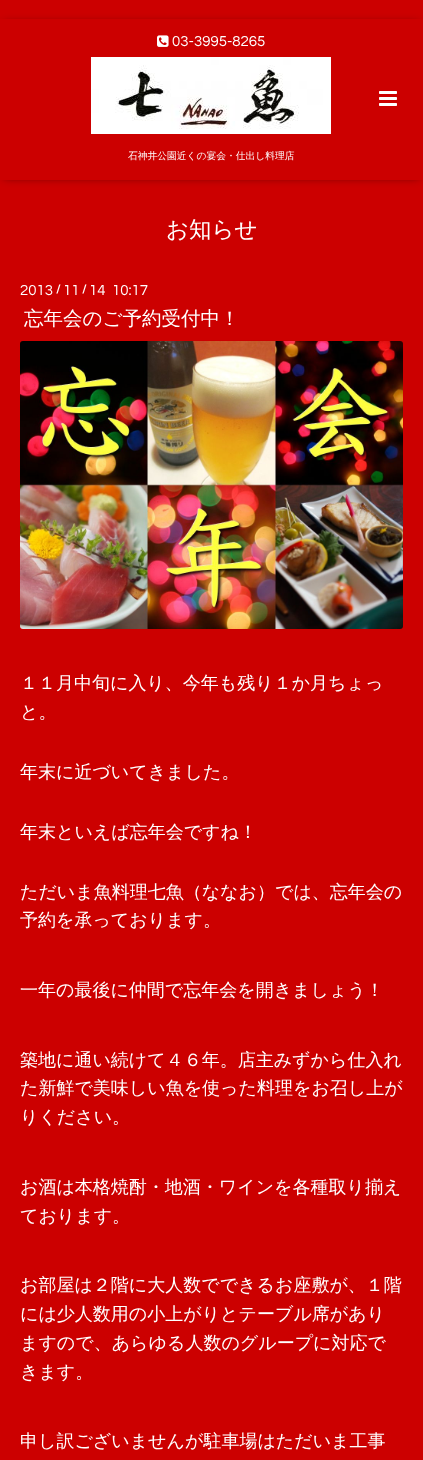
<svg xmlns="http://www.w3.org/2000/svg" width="423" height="1460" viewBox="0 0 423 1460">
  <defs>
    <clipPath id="clip1"><path d="M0 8H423V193H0ZM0 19H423V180H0Z" clip-rule="evenodd"/></clipPath>
  </defs>
  <rect width="100%" height="100%" fill="rgb(204,0,0)"/>
  <g clip-path="url(#clip1)">
    <rect x="4" y="24" width="415" height="153" fill="rgba(0,0,0,0.6)" filter="blur(5px)"/>
  </g>
  <image x="157" y="35" width="12" height="12" href="pic1.png"/>
  <text x="172" y="46" font-family="Questrial" font-size="15" fill="rgb(255,255,255)">03-3995-8265</text>
  <image x="91" y="57" width="240" height="77" href="pic2.png"/>
  <text x="128" y="159" font-family="WenQuanYi Zen Hei" font-size="9.75" font-weight="500" fill="rgb(255,255,255)">石神井公園近くの宴会・仕出し料理店</text>
  <image x="379" y="91" width="18" height="15" href="pic3.png"/>
  <text x="166" y="237" font-family="WenQuanYi Zen Hei" font-size="22.5" font-weight="500" fill="rgb(255,255,255)">お知らせ</text>
  <text x="20" y="295" font-family="Questrial" font-size="15" fill="rgb(255,255,255)">2013</text>
  <text x="56" y="293" font-family="Questrial" font-size="12" font-weight="bold" fill="rgb(255,255,255)">/</text>
  <text x="63" y="295" font-family="Questrial" font-size="15" fill="rgb(255,255,255)">11</text>
  <text x="82" y="293" font-family="Questrial" font-size="12" font-weight="bold" fill="rgb(255,255,255)">/</text>
  <text x="89" y="295" font-family="Questrial" font-size="15" fill="rgb(255,255,255)" xml:space="preserve">14  10:17</text>
  <text x="24" y="325" font-family="WenQuanYi Zen Hei" font-size="19.5" font-weight="500" fill="rgb(255,255,255)">忘年会のご予約受付中！</text>
  <image x="20" y="341" width="383" height="288" href="pic4.png"/>
  <g font-family="WenQuanYi Zen Hei" font-size="18" font-weight="500" fill="rgb(255,255,255)">
    <text>
      <tspan x="20" y="689">１１月中旬に入り、今年も残り１か月ちょっ</tspan>
      <tspan x="20" y="718">と。</tspan>
    </text>
    <text x="20" y="778">年末に近づいてきました。</text>
    <text x="20" y="838">年末といえば忘年会ですね！</text>
    <text>
      <tspan x="20" y="898">ただいま魚料理七魚（ななお）では、忘年会の</tspan>
      <tspan x="20" y="926">予約を承っております。</tspan>
    </text>
    <text x="20" y="996">一年の最後に仲間で忘年会を開きましょう！</text>
    <text>
      <tspan x="20" y="1066">築地に通い続けて４６年。店主みずから仕入れ</tspan>
      <tspan x="20" y="1094">た新鮮で美味しい魚を使った料理をお召し上が</tspan>
      <tspan x="20" y="1123">りください。</tspan>
    </text>
    <text>
      <tspan x="20" y="1193">お酒は本格焼酎・地酒・ワインを各種取り揃え</tspan>
      <tspan x="20" y="1222">ております。</tspan>
    </text>
    <text>
      <tspan x="20" y="1291">お部屋は２階に大人数でできるお座敷が、１階</tspan>
      <tspan x="20" y="1320">には少人数用の小上がりとテーブル席があり</tspan>
      <tspan x="20" y="1349">ますので、あらゆる人数のグループに対応で</tspan>
      <tspan x="20" y="1378">きます。</tspan>
    </text>
    <text x="20" y="1447">申し訳ございませんが駐車場はただいま工事</text>
  </g>
</svg>
